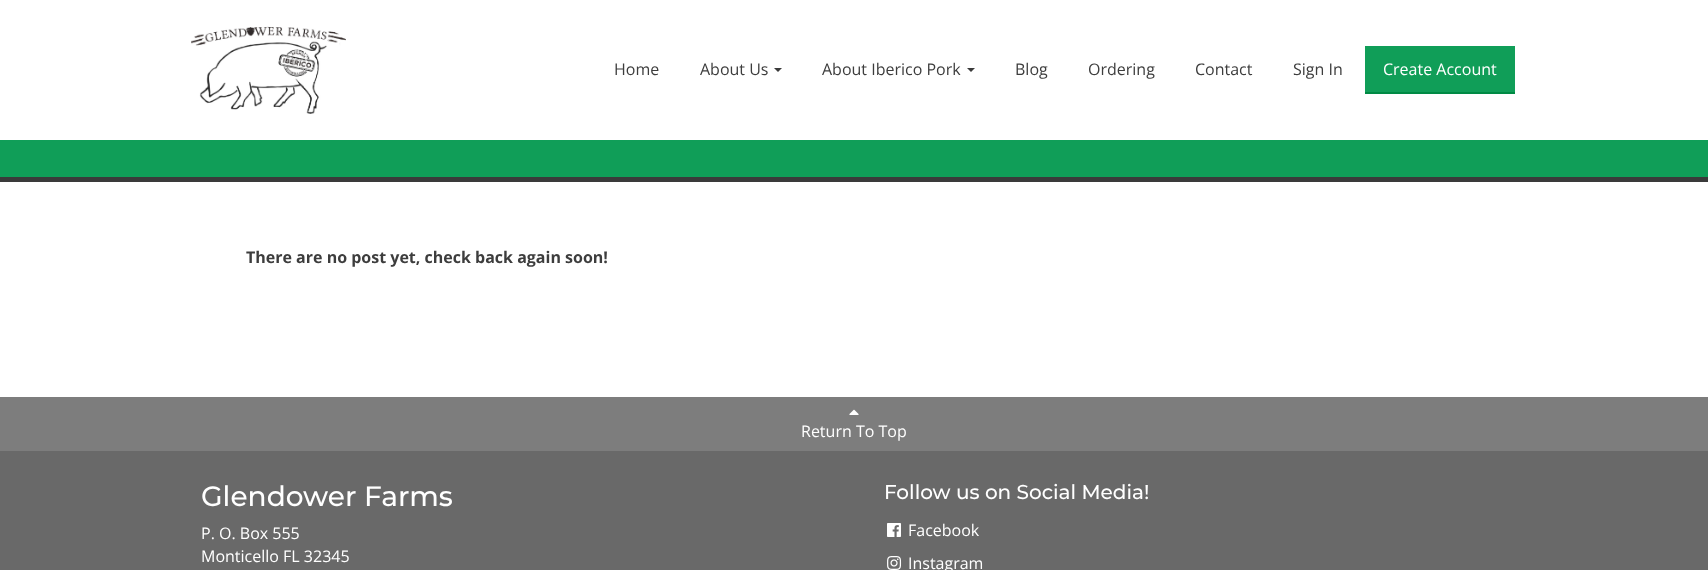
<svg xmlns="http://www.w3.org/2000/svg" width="1708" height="570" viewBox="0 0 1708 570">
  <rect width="100%" height="100%" fill="rgb(255,255,255)"/>
  <rect x="0" y="177" width="1708" height="5" fill="rgb(58,58,58)"/>
  <image x="191" y="26" width="155" height="88" href="pic1.png"/>
  <g font-family="Open Sans" font-size="16" fill="rgb(61,61,61)">
    <text x="614" y="75">Home</text>
    <text x="700" y="75">About Us</text>
  </g>
  <path d="M774 68H782L778 72Z" fill="rgb(58,58,58)"/>
  <text x="822" y="75" font-family="Open Sans" font-size="16" fill="rgb(61,61,61)">About Iberico Pork</text>
  <path d="M967 68H975L971 72Z" fill="rgb(58,58,58)"/>
  <g font-family="Open Sans" font-size="16" fill="rgb(61,61,61)">
    <text x="1015" y="75">Blog</text>
    <text x="1088" y="75">Ordering</text>
    <text x="1195" y="75">Contact</text>
    <text x="1293" y="75">Sign In</text>
  </g>
  <rect x="1365" y="46" width="150" height="46" fill="rgb(16,158,88)"/>
  <rect x="1365" y="92" width="150" height="2" fill="rgb(0,138,68)"/>
  <text x="1383" y="75" font-family="Open Sans" font-size="16" fill="rgb(255,255,255)">Create Account</text>
  <rect x="0" y="140" width="1708" height="37" fill="rgb(16,158,88)"/>
  <text x="246" y="263" font-family="Open Sans" font-size="16" font-weight="bold" fill="rgb(61,61,61)">There are no post yet, check back again soon!</text>
  <rect x="0" y="397" width="1708" height="54" fill="rgb(125,125,125)"/>
  <image x="849" y="409" width="10" height="6" href="pic2.png"/>
  <text x="801" y="437" font-family="Open Sans" font-size="16" fill="rgb(255,255,255)">Return To Top</text>
  <rect x="0" y="451" width="1708" height="119" fill="rgb(105,105,105)"/>
  <text x="201" y="506" font-family="Montserrat" font-size="28" font-weight="500" fill="rgb(255,255,255)">Glendower Farms</text>
  <g font-family="Open Sans" font-size="16" fill="rgb(255,255,255)">
    <text>
      <tspan x="201" y="539">P. O. Box 555</tspan>
      <tspan x="201" y="562">Monticello FL 32345</tspan>
    </text>
  </g>
  <text x="884" y="499" font-family="Montserrat" font-size="20" font-weight="500" fill="rgb(255,255,255)">Follow us on Social Media!</text>
  <image x="887" y="523" width="14" height="14" href="pic3.png"/>
  <text x="908" y="536" font-family="Open Sans" font-size="16" fill="rgb(255,255,255)">Facebook</text>
  <image x="887" y="556" width="15" height="14" href="pic4.png"/>
  <text x="908" y="569" font-family="Open Sans" font-size="16" fill="rgb(255,255,255)">Instagram</text>
</svg>
